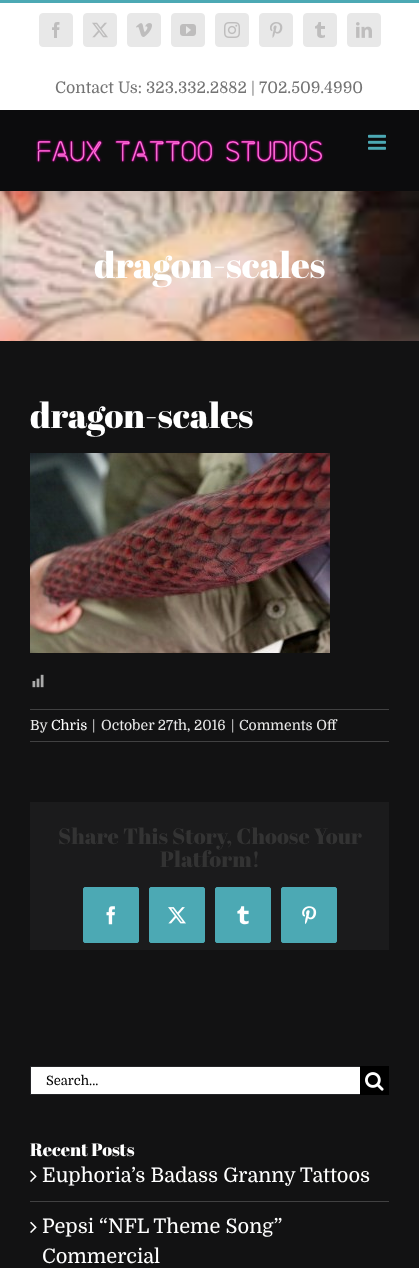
<svg xmlns="http://www.w3.org/2000/svg" width="419" height="1268" viewBox="0 0 419 1268">
  <rect width="100%" height="100%" fill="rgb(18,18,19)"/>
  <image x="0" y="191" width="419" height="150" href="pic11.png"/>
  <rect x="2" y="12" width="415" height="187" fill="rgba(0,0,0,0.14)" filter="blur(25px)"/>
  <rect x="0" y="3" width="419" height="107" fill="rgb(255,255,255)"/>
  <rect x="0" y="0" width="419" height="3" fill="rgb(76,169,180)"/>
  <rect x="39.5" y="13.5" width="33" height="33" rx="3.5" fill="rgb(232,232,232)" stroke="rgb(232,232,232)"/>
  <image x="52" y="22" width="8" height="16" href="pic1.png"/>
  <rect x="83.5" y="13.5" width="33" height="33" rx="3.5" fill="rgb(232,232,232)" stroke="rgb(232,232,232)"/>
  <image x="92" y="22" width="16" height="16" href="pic2.png"/>
  <rect x="127.5" y="13.5" width="33" height="33" rx="3.5" fill="rgb(232,232,232)" stroke="rgb(232,232,232)"/>
  <image x="136" y="23" width="16" height="14" href="pic3.png"/>
  <rect x="171.5" y="13.5" width="33" height="33" rx="3.5" fill="rgb(232,232,232)" stroke="rgb(232,232,232)"/>
  <image x="180" y="24" width="16" height="12" href="pic4.png"/>
  <rect x="215.5" y="13.5" width="33" height="33" rx="3.5" fill="rgb(232,232,232)" stroke="rgb(232,232,232)"/>
  <image x="224" y="22" width="16" height="16" href="pic5.png"/>
  <rect x="259.5" y="13.5" width="33" height="33" rx="3.5" fill="rgb(232,232,232)" stroke="rgb(232,232,232)"/>
  <image x="270" y="22" width="13" height="16" href="pic6.png"/>
  <rect x="303.5" y="13.5" width="33" height="33" rx="3.5" fill="rgb(232,232,232)" stroke="rgb(232,232,232)"/>
  <image x="315" y="22" width="10" height="16" href="pic7.png"/>
  <rect x="347.5" y="13.5" width="33" height="33" rx="3.5" fill="rgb(232,232,232)" stroke="rgb(232,232,232)"/>
  <image x="356" y="22" width="16" height="16" href="pic8.png"/>
  <text x="55" y="93" font-family="Domine" font-size="16" fill="rgb(116,116,116)">Contact Us: 323.332.2882 | 702.509.4990</text>
  <rect x="0" y="110" width="419" height="81" fill="rgb(12,12,13)"/>
  <image x="36" y="139" width="288" height="25" href="pic9.png"/>
  <image x="368" y="134" width="18" height="16" href="pic10.png"/>
  <text x="94" y="278" font-family="Abril Fatface" font-size="36.5" fill="rgb(255,255,255)">dragon-scales</text>
  <text x="30" y="428" font-family="Abril Fatface" font-size="35.25" fill="rgb(255,255,255)">dragon-scales</text>
  <image x="30" y="453" width="300" height="200" href="pic12.png"/>
  <image x="32" y="674" width="12" height="14" href="pic13.png"/>
  <rect x="30" y="709" width="359" height="1" fill="rgb(65,65,66)"/>
  <rect x="30" y="741" width="359" height="1" fill="rgb(65,65,66)"/>
  <text x="30" y="730" font-family="Domine" font-size="14" fill="rgb(234,234,234)">By</text>
  <text x="51" y="730" font-family="Domine" font-size="14" fill="rgb(255,255,255)">Chris</text>
  <g font-family="Domine" font-size="14" fill="rgb(234,234,234)">
    <text x="92" y="730">|</text>
    <text x="101" y="730">October 27th, 2016</text>
    <text x="231" y="730">|</text>
    <text x="239" y="730">Comments Off</text>
  </g>
  <rect x="30" y="802" width="359" height="148" fill="rgb(27,27,28)"/>
  <g font-family="Abril Fatface" font-size="22" fill="rgb(51,51,51)">
    <text x="58" y="844">Share This Story, Choose Your</text>
    <text x="160" y="867">Platform!</text>
  </g>
  <rect x="83.5" y="887.5" width="55" height="55" rx="1.5" fill="rgb(76,169,180)" stroke="rgb(76,169,180)"/>
  <image x="106" y="906" width="9" height="19" href="pic14.png"/>
  <rect x="149.5" y="887.5" width="55" height="55" rx="1.5" fill="rgb(76,169,180)" stroke="rgb(76,169,180)"/>
  <image x="168" y="907" width="18" height="17" href="pic15.png"/>
  <rect x="215.5" y="887.5" width="55" height="55" rx="1.5" fill="rgb(76,169,180)" stroke="rgb(76,169,180)"/>
  <image x="237" y="906" width="12" height="19" href="pic16.png"/>
  <rect x="281.5" y="887.5" width="55" height="55" rx="1.5" fill="rgb(76,169,180)" stroke="rgb(76,169,180)"/>
  <image x="302" y="906" width="15" height="19" href="pic17.png"/>
  <rect x="31" y="1067" width="329" height="27" fill="rgb(255,255,255)"/>
  <rect x="30" y="1066" width="330" height="1" fill="rgb(36,37,40)"/>
  <rect x="30" y="1094" width="330" height="1" fill="rgb(36,37,40)"/>
  <rect x="30" y="1066" width="1" height="29" fill="rgb(36,37,40)"/>
  <text x="46" y="1085" font-family="Domine" font-size="13" fill="rgb(0,0,0)">Search...</text>
  <rect x="360" y="1066" width="29" height="29" fill="rgb(0,0,0)"/>
  <image x="365" y="1072" width="19" height="19" href="pic18.png"/>
  <text x="30" y="1156" font-family="Abril Fatface" font-size="18" fill="rgb(255,255,255)">Recent Posts</text>
  <rect x="30" y="1201" width="359" height="1" fill="rgb(65,65,66)"/>
  <image x="30" y="1170" width="7" height="12" href="pic19.png"/>
  <text x="42" y="1182" font-family="Domine" font-size="20" fill="rgb(255,255,255)">Euphoria’s Badass Granny Tattoos</text>
  <image x="30" y="1221" width="7" height="12" href="pic19.png"/>
  <g font-family="Domine" font-size="20" fill="rgb(255,255,255)">
    <text>
      <tspan x="42" y="1233">Pepsi “NFL Theme Song”</tspan>
      <tspan x="42" y="1263">Commercial</tspan>
    </text>
  </g>
</svg>
